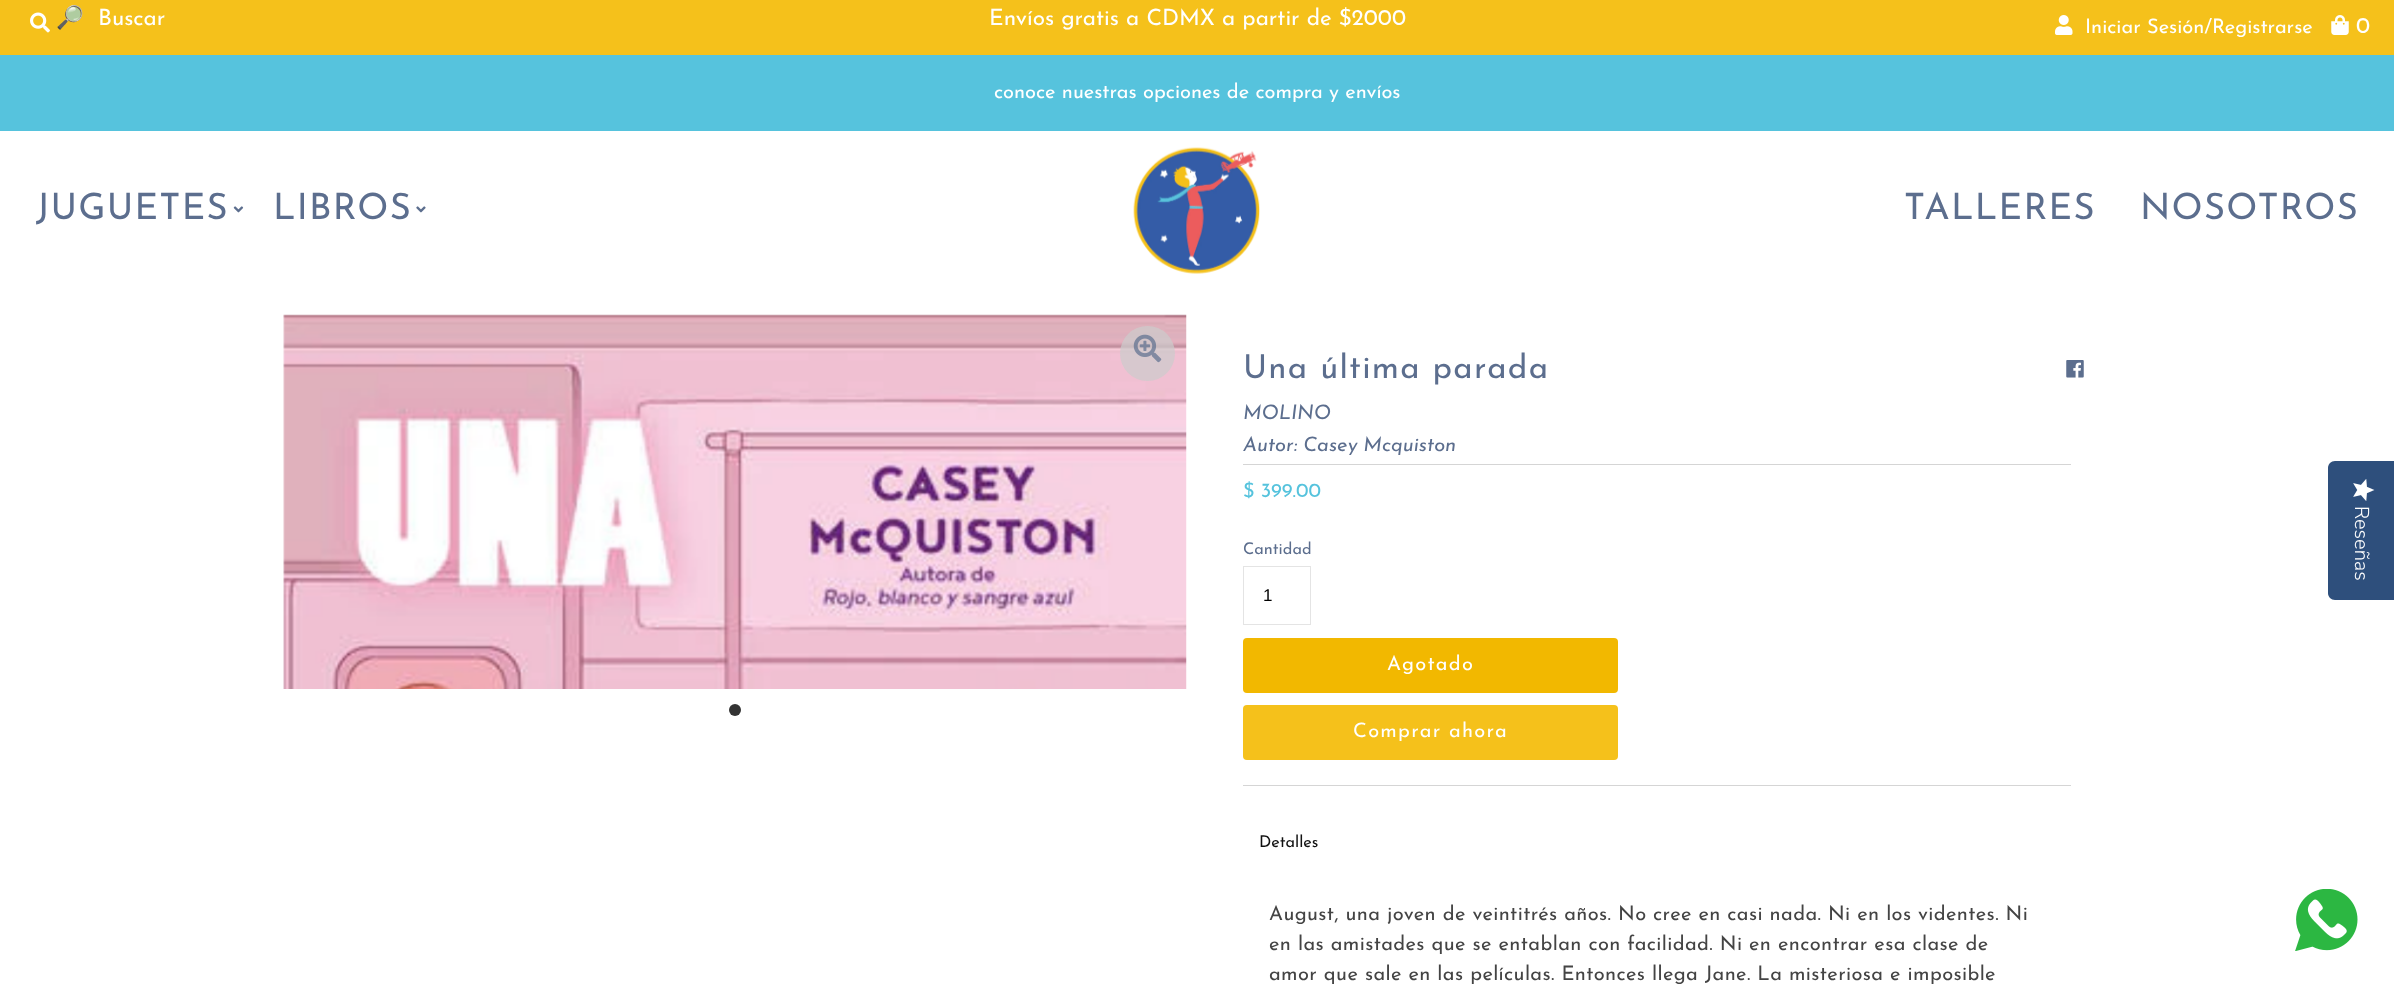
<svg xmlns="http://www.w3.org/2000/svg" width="2394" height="988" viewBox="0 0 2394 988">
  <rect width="100%" height="100%" fill="rgb(255,255,255)"/>
  <rect x="0" y="0" width="2394" height="55" fill="rgb(245,193,27)"/>
  <image x="30" y="12" width="20" height="21" href="pic1.png"/>
  <text x="56" y="25" font-family="Noto Color Emoji" font-size="22.5" fill="rgb(255,255,255)">🔎</text>
  <g font-family="Josefin Sans" font-size="22.5" fill="rgb(255,255,255)">
    <text x="98" y="25">Buscar</text>
    <text x="989" y="25">Envíos gratis a CDMX a partir de $2000</text>
  </g>
  <image x="2055" y="15" width="18" height="20" href="pic2.png"/>
  <text x="2085" y="33" font-family="Josefin Sans" font-size="20" fill="rgb(255,255,255)">Iniciar Sesión/Registrarse</text>
  <image x="2331" y="15" width="18" height="20" href="pic3.png"/>
  <text x="2356" y="33" font-family="Josefin Sans" font-size="22.5" fill="rgb(255,255,255)">0</text>
  <rect x="0" y="55" width="2394" height="76" fill="rgb(86,195,221)"/>
  <text x="994" y="98" font-family="Josefin Sans" font-size="20" fill="rgb(255,255,255)">conoce nuestras opciones de compra y envíos</text>
  <text x="36" y="219" font-family="Josefin Sans" font-size="36.25" letter-spacing="1.25" fill="rgb(92,110,142)">JUGUETES</text>
  <image x="233" y="206" width="11" height="7" href="pic4.png"/>
  <text x="273" y="219" font-family="Josefin Sans" font-size="36.25" letter-spacing="1.25" fill="rgb(92,110,142)">LIBROS</text>
  <image x="416" y="206" width="10" height="7" href="pic5.png"/>
  <image x="1133" y="147" width="127" height="127" href="pic6.png"/>
  <g font-family="Josefin Sans" font-size="36.25" letter-spacing="1.25" fill="rgb(92,110,142)">
    <text x="1904" y="219">TALLERES</text>
    <text x="2140" y="219">NOSOTROS</text>
  </g>
  <image x="283" y="314" width="904" height="375" href="pic7.png"/>
  <circle cx="1147.5" cy="353.5" r="27.5" fill="rgba(204,204,204,0.7)"/>
  <image x="1133" y="334" width="29" height="29" href="pic8.png"/>
  <circle cx="735" cy="710" r="6" fill="rgb(51,51,51)"/>
  <text x="1243" y="378" font-family="Josefin Sans" font-size="33" letter-spacing="1.25" fill="rgb(92,110,142)">Una última parada</text>
  <image x="2066" y="360" width="18" height="18" href="pic9.png"/>
  <g font-family="Josefin Sans" font-size="20" font-style="italic" fill="rgb(92,110,142)">
    <text>
      <tspan x="1243" y="419">MOLINO</tspan>
      <tspan x="1243" y="451">Autor: Casey Mcquiston</tspan>
    </text>
  </g>
  <rect x="1243" y="464" width="828" height="1" fill="rgb(213,213,213)"/>
  <rect x="1243" y="785" width="828" height="1" fill="rgb(213,213,213)"/>
  <text x="1243" y="497" font-family="Josefin Sans" font-size="20" fill="rgb(86,195,221)">$ 399.00</text>
  <text x="1243" y="554" font-family="Josefin Sans" font-size="16.25" fill="rgb(92,110,142)">Cantidad</text>
  <rect x="1243.5" y="566.5" width="67" height="58" fill="none" stroke="rgb(228,228,228)"/>
  <text x="1263" y="601" font-family="Liberation Sans" font-size="17" fill="rgb(0,0,0)">1</text>
  <rect x="1243" y="638" width="375" height="55" rx="4" fill="rgb(242,184,0)"/>
  <text x="1387" y="670" font-family="Josefin Sans" font-size="20" letter-spacing="1.25" fill="rgb(255,255,255)">Agotado</text>
  <rect x="1243" y="705" width="375" height="55" rx="4" fill="rgb(245,193,27)"/>
  <text x="1353" y="737" font-family="Josefin Sans" font-size="20" letter-spacing="1.25" fill="rgb(255,255,255)">Comprar ahora</text>
  <text x="1259" y="847" font-family="Josefin Sans" font-size="16.25" fill="rgb(17,17,17)">Detalles</text>
  <g font-family="Josefin Sans" font-size="20" letter-spacing="0.38" fill="rgb(68,68,68)">
    <text>
      <tspan x="1269" y="920">August, una joven de veintitrés años. No cree en casi nada. Ni en los videntes. Ni</tspan>
      <tspan x="1269" y="950">en las amistades que se entablan con facilidad. Ni en encontrar esa clase de</tspan>
      <tspan x="1269" y="980">amor que sale en las películas. Entonces llega Jane. La misteriosa e imposible</tspan>
    </text>
  </g>
  <path d="M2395 461V600H2335C2331 600 2328 597 2328 593V468C2328 464 2331 461 2335 461Z" fill="rgb(46,79,124)"/>
  <image x="2353" y="479" width="22" height="22" href="pic10.png"/>
  <text x="2355" y="506" transform="rotate(90 2355 506)" font-family="Nunito Sans" font-size="20" font-weight="300" fill="rgb(255,255,255)">Reseñas</text>
  <image x="2295" y="889" width="63" height="62" href="pic11.png"/>
</svg>
